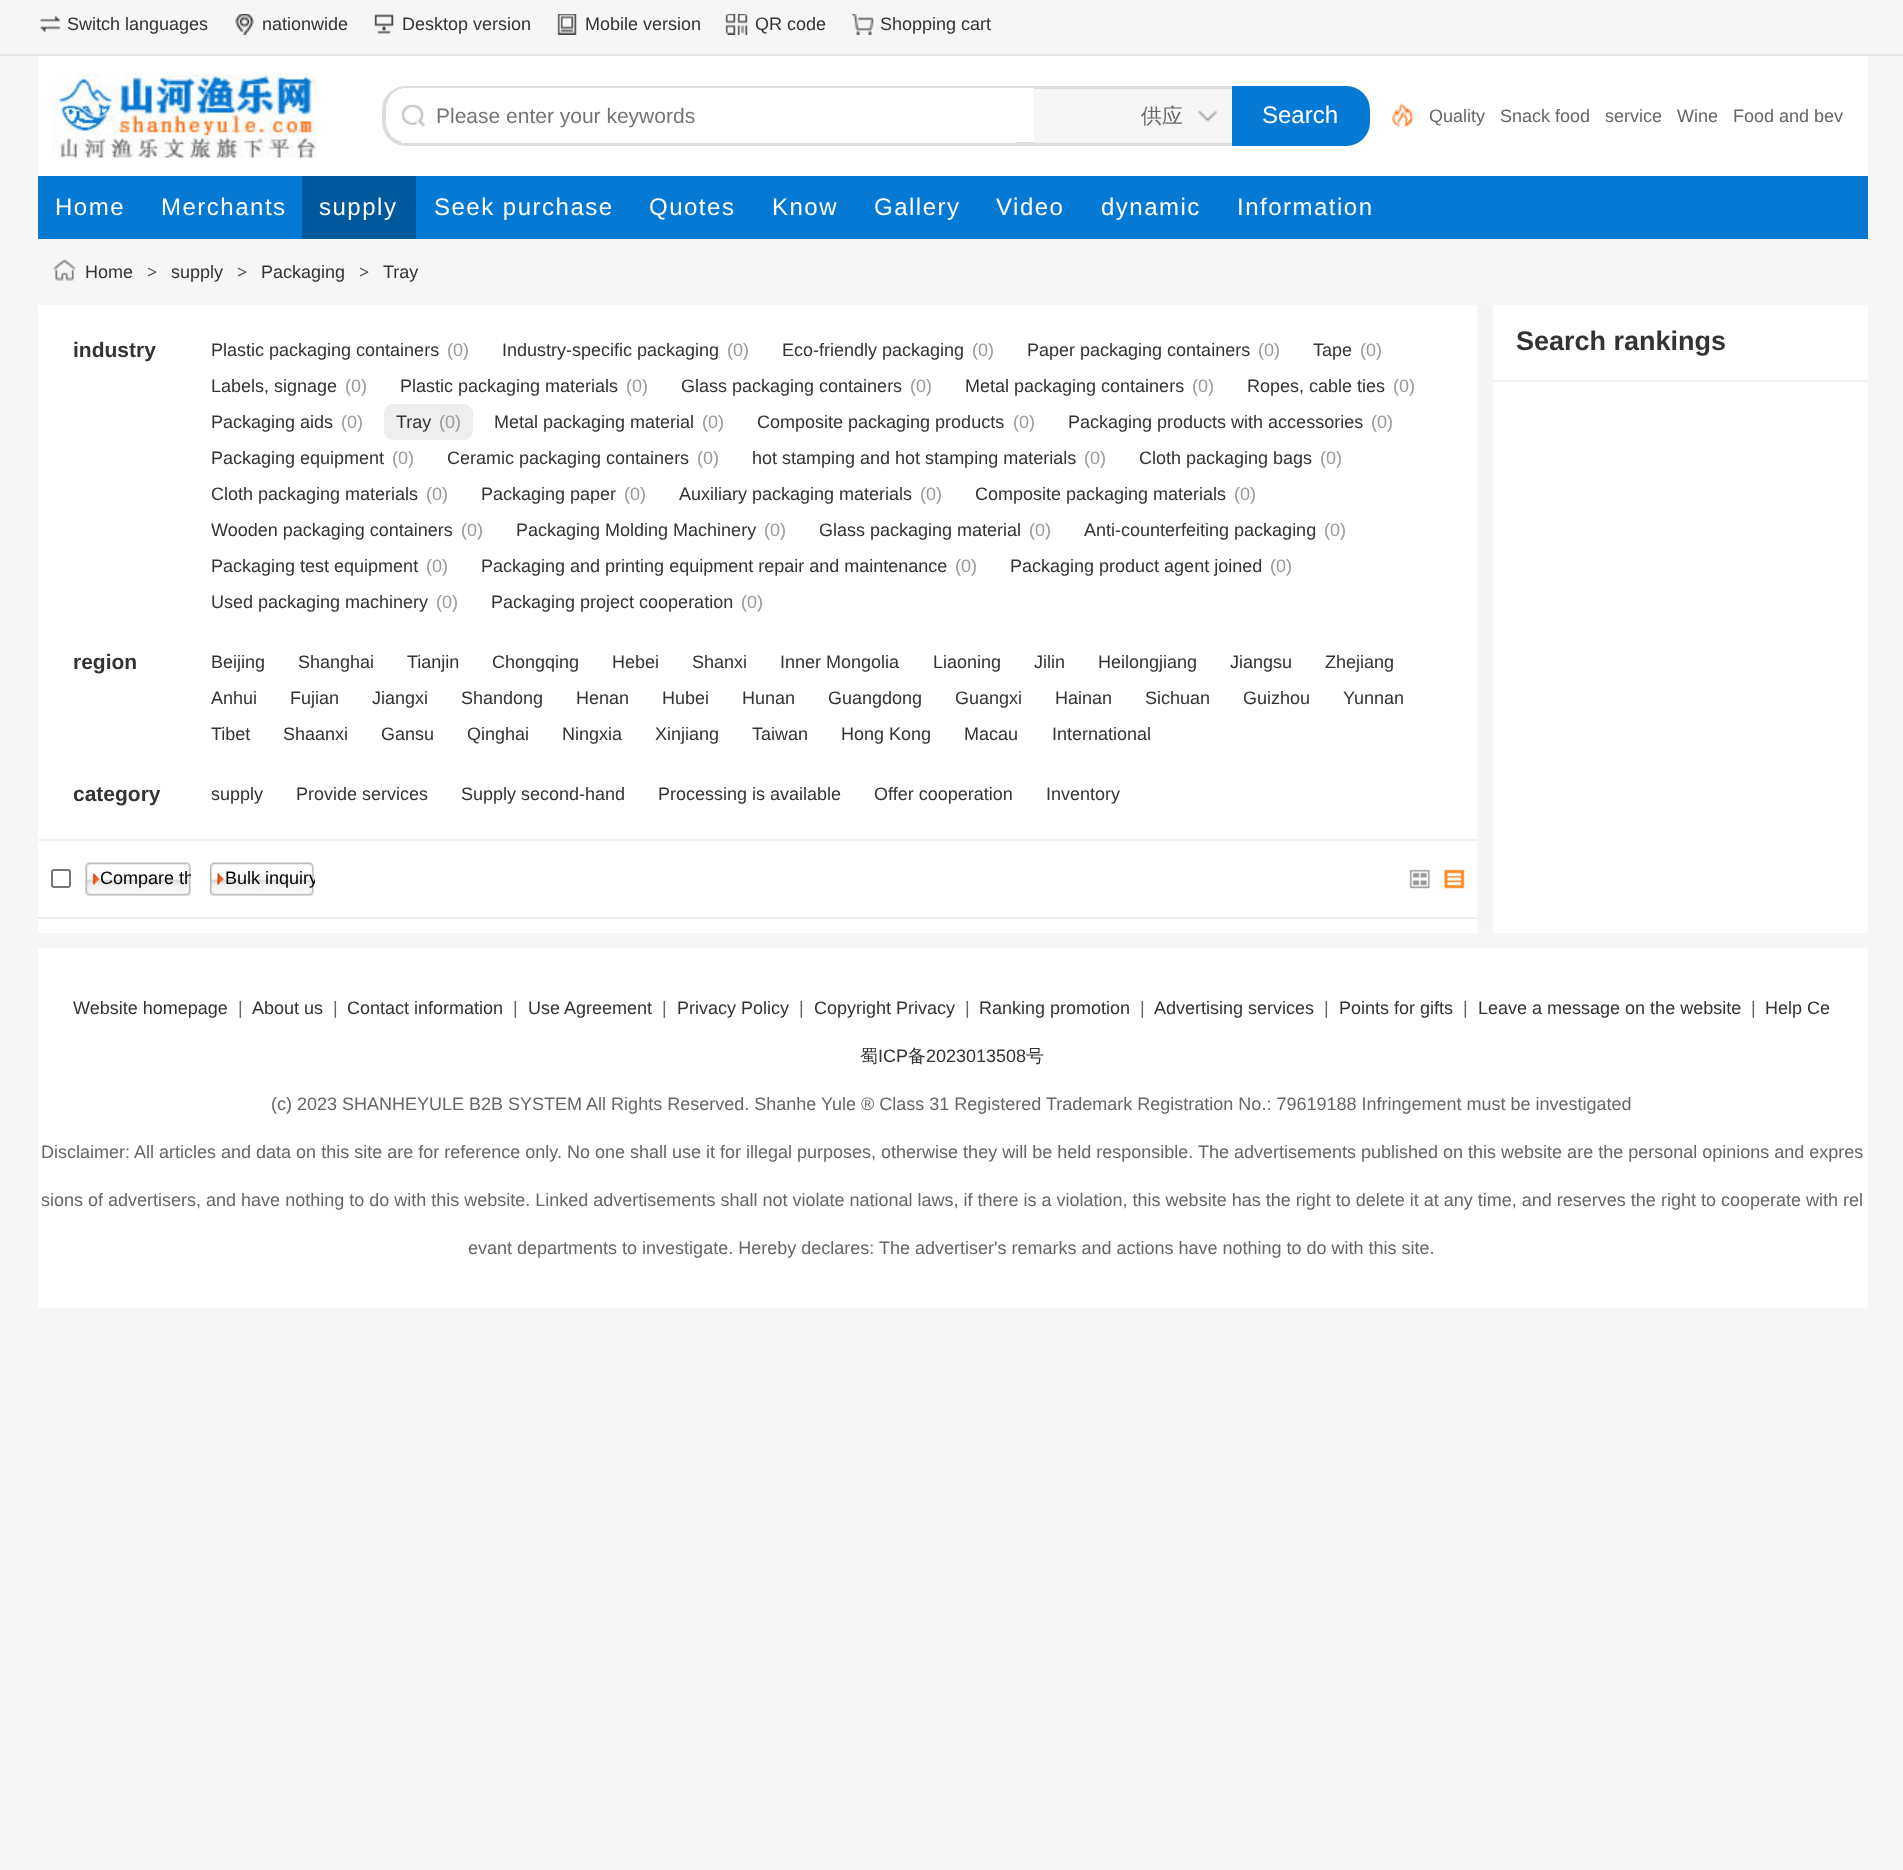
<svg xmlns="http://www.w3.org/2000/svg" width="1903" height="1870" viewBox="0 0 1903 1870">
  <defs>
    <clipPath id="clip1"><rect x="86" y="863" width="105" height="33"/></clipPath>
    <clipPath id="clip2"><rect x="210" y="863" width="105" height="33"/></clipPath>
  </defs>
  <rect width="100%" height="100%" fill="rgb(246,246,246)"/>
  <rect x="0" y="54" width="1903" height="2" fill="rgb(229,229,229)"/>
  <image x="40" y="15" width="21" height="18" href="pic1.png"/>
  <text x="67" y="30" font-family="Liberation Sans" font-size="18" fill="rgb(51,51,51)">Switch languages</text>
  <image x="235" y="14" width="19" height="21" href="pic2.png"/>
  <text x="262" y="30" font-family="Liberation Sans" font-size="18" fill="rgb(51,51,51)">nationwide</text>
  <image x="374" y="14" width="20" height="20" href="pic3.png"/>
  <text x="402" y="30" font-family="Liberation Sans" font-size="18" fill="rgb(51,51,51)">Desktop version</text>
  <image x="557" y="14" width="20" height="21" href="pic4.png"/>
  <text x="585" y="30" font-family="Liberation Sans" font-size="18" fill="rgb(51,51,51)">Mobile version</text>
  <image x="725" y="14" width="23" height="21" href="pic5.png"/>
  <text x="755" y="30" font-family="Liberation Sans" font-size="18" fill="rgb(51,51,51)">QR code</text>
  <image x="851" y="14" width="23" height="21" href="pic6.png"/>
  <text x="880" y="30" font-family="Liberation Sans" font-size="18" fill="rgb(51,51,51)">Shopping cart</text>
  <rect x="38" y="56" width="1830" height="120" fill="rgb(255,255,255)"/>
  <image x="52" y="73" width="265" height="85" href="pic7.png"/>
  <path d="M406 86H1034V146H406C393 146 382 135 382 122V110C382 96 393 86 406 86ZM406 88H1034V142H406C395 142 386 133 386 122V110C386 98 395 88 406 88Z" fill="rgb(221,221,221)" fill-rule="evenodd"/>
  <rect x="401" y="141" width="615" height="2" fill="rgb(255,255,255)"/>
  <image x="401" y="104" width="24" height="23" href="pic8.png"/>
  <text x="436" y="123" font-family="Liberation Sans" font-size="21" fill="rgb(117,117,117)">Please enter your keywords</text>
  <rect x="1034" y="89" width="198" height="54" fill="rgb(246,246,246)"/>
  <rect x="1034" y="86" width="198" height="3" fill="rgb(221,221,221)"/>
  <rect x="1034" y="143" width="198" height="3" fill="rgb(221,221,221)"/>
  <image x="1198" y="110" width="19" height="12" href="pic9.png"/>
  <text x="1141" y="123" font-family="WenQuanYi Zen Hei" font-size="21" font-weight="500" fill="rgb(102,102,102)">供应</text>
  <path d="M1233.5 87.5H1346C1358.5 87.5 1368.5 97.5 1368.5 110V122C1368.5 134.5 1358.5 144.5 1346 144.5H1233.5Z" fill="rgb(6,121,212)" stroke="rgb(6,121,212)" stroke-width="3"/>
  <text x="1262" y="123" font-family="Liberation Sans" font-size="24" fill="rgb(255,255,255)">Search</text>
  <image x="1391" y="103" width="23" height="24" href="pic10.png"/>
  <g font-family="Liberation Sans" font-size="18" fill="rgb(102,102,102)">
    <text x="1429" y="122">Quality</text>
    <text x="1500" y="122">Snack food</text>
    <text x="1605" y="122">service</text>
    <text x="1677" y="122">Wine</text>
    <text x="1733" y="122">Food and bev</text>
  </g>
  <rect x="38" y="176" width="1830" height="63" fill="rgb(6,121,212)"/>
  <g font-family="Liberation Sans" font-size="24" letter-spacing="1.5" fill="rgb(255,255,255)">
    <text x="55" y="215">Home</text>
    <text x="161" y="215">Merchants</text>
  </g>
  <rect x="302" y="176" width="114" height="63" fill="rgb(0,89,156)"/>
  <g font-family="Liberation Sans" font-size="24" letter-spacing="1.5" fill="rgb(255,255,255)">
    <text x="319" y="215">supply</text>
    <text x="434" y="215">Seek purchase</text>
    <text x="649" y="215">Quotes</text>
    <text x="772" y="215">Know</text>
    <text x="874" y="215">Gallery</text>
    <text x="996" y="215">Video</text>
    <text x="1101" y="215">dynamic</text>
    <text x="1237" y="215">Information</text>
  </g>
  <image x="53" y="259" width="23" height="22" href="pic11.png"/>
  <text x="85" y="278" font-family="Liberation Sans" font-size="18" fill="rgb(51,51,51)">Home</text>
  <text x="147" y="278" font-family="Liberation Serif" font-size="18" font-weight="bold" fill="rgb(68,68,68)">&gt;</text>
  <text x="171" y="278" font-family="Liberation Sans" font-size="18" fill="rgb(51,51,51)">supply</text>
  <text x="237" y="278" font-family="Liberation Serif" font-size="18" font-weight="bold" fill="rgb(68,68,68)">&gt;</text>
  <text x="261" y="278" font-family="Liberation Sans" font-size="18" fill="rgb(51,51,51)">Packaging</text>
  <text x="359" y="278" font-family="Liberation Serif" font-size="18" font-weight="bold" fill="rgb(68,68,68)">&gt;</text>
  <text x="383" y="278" font-family="Liberation Sans" font-size="18" fill="rgb(51,51,51)">Tray</text>
  <rect x="38" y="305" width="1830" height="628" fill="rgb(255,255,255)"/>
  <rect x="1477" y="305" width="16" height="628" fill="rgb(245,245,245)"/>
  <rect x="38" y="839" width="1440" height="2" fill="rgb(242,242,242)"/>
  <text x="73" y="357" font-family="Liberation Sans" font-size="21" font-weight="bold" fill="rgb(51,51,51)">industry</text>
  <text x="211" y="356" font-family="Liberation Sans" font-size="18" fill="rgb(51,51,51)">Plastic packaging containers</text>
  <text x="447" y="356" font-family="Liberation Sans" font-size="18" fill="rgb(153,153,153)">(0)</text>
  <text x="502" y="356" font-family="Liberation Sans" font-size="18" fill="rgb(51,51,51)">Industry-specific packaging</text>
  <text x="727" y="356" font-family="Liberation Sans" font-size="18" fill="rgb(153,153,153)">(0)</text>
  <text x="782" y="356" font-family="Liberation Sans" font-size="18" fill="rgb(51,51,51)">Eco-friendly packaging</text>
  <text x="972" y="356" font-family="Liberation Sans" font-size="18" fill="rgb(153,153,153)">(0)</text>
  <text x="1027" y="356" font-family="Liberation Sans" font-size="18" fill="rgb(51,51,51)">Paper packaging containers</text>
  <text x="1258" y="356" font-family="Liberation Sans" font-size="18" fill="rgb(153,153,153)">(0)</text>
  <text x="1313" y="356" font-family="Liberation Sans" font-size="18" fill="rgb(51,51,51)">Tape</text>
  <text x="1360" y="356" font-family="Liberation Sans" font-size="18" fill="rgb(153,153,153)">(0)</text>
  <text x="211" y="392" font-family="Liberation Sans" font-size="18" fill="rgb(51,51,51)">Labels, signage</text>
  <text x="345" y="392" font-family="Liberation Sans" font-size="18" fill="rgb(153,153,153)">(0)</text>
  <text x="400" y="392" font-family="Liberation Sans" font-size="18" fill="rgb(51,51,51)">Plastic packaging materials</text>
  <text x="626" y="392" font-family="Liberation Sans" font-size="18" fill="rgb(153,153,153)">(0)</text>
  <text x="681" y="392" font-family="Liberation Sans" font-size="18" fill="rgb(51,51,51)">Glass packaging containers</text>
  <text x="910" y="392" font-family="Liberation Sans" font-size="18" fill="rgb(153,153,153)">(0)</text>
  <text x="965" y="392" font-family="Liberation Sans" font-size="18" fill="rgb(51,51,51)">Metal packaging containers</text>
  <text x="1192" y="392" font-family="Liberation Sans" font-size="18" fill="rgb(153,153,153)">(0)</text>
  <text x="1247" y="392" font-family="Liberation Sans" font-size="18" fill="rgb(51,51,51)">Ropes, cable ties</text>
  <text x="1393" y="392" font-family="Liberation Sans" font-size="18" fill="rgb(153,153,153)">(0)</text>
  <text x="211" y="428" font-family="Liberation Sans" font-size="18" fill="rgb(51,51,51)">Packaging aids</text>
  <text x="341" y="428" font-family="Liberation Sans" font-size="18" fill="rgb(153,153,153)">(0)</text>
  <rect x="384" y="404" width="89" height="36" rx="9" fill="rgb(238,238,238)"/>
  <text x="396" y="428" font-family="Liberation Sans" font-size="18" fill="rgb(51,51,51)">Tray</text>
  <text x="439" y="428" font-family="Liberation Sans" font-size="18" fill="rgb(153,153,153)">(0)</text>
  <text x="494" y="428" font-family="Liberation Sans" font-size="18" fill="rgb(51,51,51)">Metal packaging material</text>
  <text x="702" y="428" font-family="Liberation Sans" font-size="18" fill="rgb(153,153,153)">(0)</text>
  <text x="757" y="428" font-family="Liberation Sans" font-size="18" fill="rgb(51,51,51)">Composite packaging products</text>
  <text x="1013" y="428" font-family="Liberation Sans" font-size="18" fill="rgb(153,153,153)">(0)</text>
  <text x="1068" y="428" font-family="Liberation Sans" font-size="18" fill="rgb(51,51,51)">Packaging products with accessories</text>
  <text x="1371" y="428" font-family="Liberation Sans" font-size="18" fill="rgb(153,153,153)">(0)</text>
  <text x="211" y="464" font-family="Liberation Sans" font-size="18" fill="rgb(51,51,51)">Packaging equipment</text>
  <text x="392" y="464" font-family="Liberation Sans" font-size="18" fill="rgb(153,153,153)">(0)</text>
  <text x="447" y="464" font-family="Liberation Sans" font-size="18" fill="rgb(51,51,51)">Ceramic packaging containers</text>
  <text x="697" y="464" font-family="Liberation Sans" font-size="18" fill="rgb(153,153,153)">(0)</text>
  <text x="752" y="464" font-family="Liberation Sans" font-size="18" fill="rgb(51,51,51)">hot stamping and hot stamping materials</text>
  <text x="1084" y="464" font-family="Liberation Sans" font-size="18" fill="rgb(153,153,153)">(0)</text>
  <text x="1139" y="464" font-family="Liberation Sans" font-size="18" fill="rgb(51,51,51)">Cloth packaging bags</text>
  <text x="1320" y="464" font-family="Liberation Sans" font-size="18" fill="rgb(153,153,153)">(0)</text>
  <text x="211" y="500" font-family="Liberation Sans" font-size="18" fill="rgb(51,51,51)">Cloth packaging materials</text>
  <text x="426" y="500" font-family="Liberation Sans" font-size="18" fill="rgb(153,153,153)">(0)</text>
  <text x="481" y="500" font-family="Liberation Sans" font-size="18" fill="rgb(51,51,51)">Packaging paper</text>
  <text x="624" y="500" font-family="Liberation Sans" font-size="18" fill="rgb(153,153,153)">(0)</text>
  <text x="679" y="500" font-family="Liberation Sans" font-size="18" fill="rgb(51,51,51)">Auxiliary packaging materials</text>
  <text x="920" y="500" font-family="Liberation Sans" font-size="18" fill="rgb(153,153,153)">(0)</text>
  <text x="975" y="500" font-family="Liberation Sans" font-size="18" fill="rgb(51,51,51)">Composite packaging materials</text>
  <text x="1234" y="500" font-family="Liberation Sans" font-size="18" fill="rgb(153,153,153)">(0)</text>
  <text x="211" y="536" font-family="Liberation Sans" font-size="18" fill="rgb(51,51,51)">Wooden packaging containers</text>
  <text x="461" y="536" font-family="Liberation Sans" font-size="18" fill="rgb(153,153,153)">(0)</text>
  <text x="516" y="536" font-family="Liberation Sans" font-size="18" fill="rgb(51,51,51)">Packaging Molding Machinery</text>
  <text x="764" y="536" font-family="Liberation Sans" font-size="18" fill="rgb(153,153,153)">(0)</text>
  <text x="819" y="536" font-family="Liberation Sans" font-size="18" fill="rgb(51,51,51)">Glass packaging material</text>
  <text x="1029" y="536" font-family="Liberation Sans" font-size="18" fill="rgb(153,153,153)">(0)</text>
  <text x="1084" y="536" font-family="Liberation Sans" font-size="18" fill="rgb(51,51,51)">Anti-counterfeiting packaging</text>
  <text x="1324" y="536" font-family="Liberation Sans" font-size="18" fill="rgb(153,153,153)">(0)</text>
  <text x="211" y="572" font-family="Liberation Sans" font-size="18" fill="rgb(51,51,51)">Packaging test equipment</text>
  <text x="426" y="572" font-family="Liberation Sans" font-size="18" fill="rgb(153,153,153)">(0)</text>
  <text x="481" y="572" font-family="Liberation Sans" font-size="18" fill="rgb(51,51,51)">Packaging and printing equipment repair and maintenance</text>
  <text x="955" y="572" font-family="Liberation Sans" font-size="18" fill="rgb(153,153,153)">(0)</text>
  <text x="1010" y="572" font-family="Liberation Sans" font-size="18" fill="rgb(51,51,51)">Packaging product agent joined</text>
  <text x="1270" y="572" font-family="Liberation Sans" font-size="18" fill="rgb(153,153,153)">(0)</text>
  <text x="211" y="608" font-family="Liberation Sans" font-size="18" fill="rgb(51,51,51)">Used packaging machinery</text>
  <text x="436" y="608" font-family="Liberation Sans" font-size="18" fill="rgb(153,153,153)">(0)</text>
  <text x="491" y="608" font-family="Liberation Sans" font-size="18" fill="rgb(51,51,51)">Packaging project cooperation</text>
  <text x="741" y="608" font-family="Liberation Sans" font-size="18" fill="rgb(153,153,153)">(0)</text>
  <text x="73" y="669" font-family="Liberation Sans" font-size="21" font-weight="bold" fill="rgb(51,51,51)">region</text>
  <g font-family="Liberation Sans" font-size="18" fill="rgb(51,51,51)">
    <text x="211" y="668">Beijing</text>
    <text x="298" y="668">Shanghai</text>
    <text x="407" y="668">Tianjin</text>
    <text x="492" y="668">Chongqing</text>
    <text x="612" y="668">Hebei</text>
    <text x="692" y="668">Shanxi</text>
    <text x="780" y="668">Inner Mongolia</text>
    <text x="933" y="668">Liaoning</text>
    <text x="1034" y="668">Jilin</text>
    <text x="1098" y="668">Heilongjiang</text>
    <text x="1230" y="668">Jiangsu</text>
    <text x="1325" y="668">Zhejiang</text>
    <text x="211" y="704">Anhui</text>
    <text x="290" y="704">Fujian</text>
    <text x="372" y="704">Jiangxi</text>
    <text x="461" y="704">Shandong</text>
    <text x="576" y="704">Henan</text>
    <text x="662" y="704">Hubei</text>
    <text x="742" y="704">Hunan</text>
    <text x="828" y="704">Guangdong</text>
    <text x="955" y="704">Guangxi</text>
    <text x="1055" y="704">Hainan</text>
    <text x="1145" y="704">Sichuan</text>
    <text x="1243" y="704">Guizhou</text>
    <text x="1343" y="704">Yunnan</text>
    <text x="211" y="740">Tibet</text>
    <text x="283" y="740">Shaanxi</text>
    <text x="381" y="740">Gansu</text>
    <text x="467" y="740">Qinghai</text>
    <text x="562" y="740">Ningxia</text>
    <text x="655" y="740">Xinjiang</text>
    <text x="752" y="740">Taiwan</text>
    <text x="841" y="740">Hong Kong</text>
    <text x="964" y="740">Macau</text>
    <text x="1052" y="740">International</text>
  </g>
  <text x="73" y="801" font-family="Liberation Sans" font-size="21" font-weight="bold" fill="rgb(51,51,51)">category</text>
  <g font-family="Liberation Sans" font-size="18" fill="rgb(51,51,51)">
    <text x="211" y="800">supply</text>
    <text x="296" y="800">Provide services</text>
    <text x="461" y="800">Supply second-hand</text>
    <text x="658" y="800">Processing is available</text>
    <text x="874" y="800">Offer cooperation</text>
    <text x="1046" y="800">Inventory</text>
  </g>
  <rect x="38" y="917" width="1440" height="2" fill="rgb(238,238,238)"/>
  <rect x="52" y="870" width="18" height="17" rx="2" fill="none" stroke="rgb(118,118,118)" stroke-width="2"/>
  <image x="85" y="862" width="106" height="34" href="pic12.png"/>
  <g clip-path="url(#clip1)">
    <text x="100" y="884" font-family="Liberation Sans" font-size="18" fill="rgb(0,0,0)">Compare th</text>
  </g>
  <image x="210" y="862" width="104" height="34" href="pic13.png"/>
  <g clip-path="url(#clip2)">
    <text x="225" y="884" font-family="Liberation Sans" font-size="18" fill="rgb(0,0,0)">Bulk inquiry</text>
  </g>
  <image x="1409" y="869" width="21" height="20" href="pic14.png"/>
  <image x="1444" y="869" width="21" height="20" href="pic15.png"/>
  <rect x="1493" y="380" width="375" height="2" fill="rgb(242,242,242)"/>
  <text x="1516" y="350" font-family="Liberation Sans" font-size="27" font-weight="bold" fill="rgb(51,51,51)">Search rankings</text>
  <rect x="38" y="948" width="1830" height="360" fill="rgb(255,255,255)"/>
  <text x="73" y="1014" font-family="Liberation Sans" font-size="18" fill="rgb(51,51,51)">Website homepage</text>
  <text x="238" y="1014" font-family="Liberation Sans" font-size="18" fill="rgb(102,102,102)">|</text>
  <text x="252" y="1014" font-family="Liberation Sans" font-size="18" fill="rgb(51,51,51)">About us</text>
  <text x="333" y="1014" font-family="Liberation Sans" font-size="18" fill="rgb(102,102,102)">|</text>
  <text x="347" y="1014" font-family="Liberation Sans" font-size="18" fill="rgb(51,51,51)">Contact information</text>
  <text x="513" y="1014" font-family="Liberation Sans" font-size="18" fill="rgb(102,102,102)">|</text>
  <text x="528" y="1014" font-family="Liberation Sans" font-size="18" fill="rgb(51,51,51)">Use Agreement</text>
  <text x="662" y="1014" font-family="Liberation Sans" font-size="18" fill="rgb(102,102,102)">|</text>
  <text x="677" y="1014" font-family="Liberation Sans" font-size="18" fill="rgb(51,51,51)">Privacy Policy</text>
  <text x="799" y="1014" font-family="Liberation Sans" font-size="18" fill="rgb(102,102,102)">|</text>
  <text x="814" y="1014" font-family="Liberation Sans" font-size="18" fill="rgb(51,51,51)">Copyright Privacy</text>
  <text x="965" y="1014" font-family="Liberation Sans" font-size="18" fill="rgb(102,102,102)">|</text>
  <text x="979" y="1014" font-family="Liberation Sans" font-size="18" fill="rgb(51,51,51)">Ranking promotion</text>
  <text x="1140" y="1014" font-family="Liberation Sans" font-size="18" fill="rgb(102,102,102)">|</text>
  <text x="1154" y="1014" font-family="Liberation Sans" font-size="18" fill="rgb(51,51,51)">Advertising services</text>
  <text x="1324" y="1014" font-family="Liberation Sans" font-size="18" fill="rgb(102,102,102)">|</text>
  <text x="1339" y="1014" font-family="Liberation Sans" font-size="18" fill="rgb(51,51,51)">Points for gifts</text>
  <text x="1463" y="1014" font-family="Liberation Sans" font-size="18" fill="rgb(102,102,102)">|</text>
  <text x="1478" y="1014" font-family="Liberation Sans" font-size="18" fill="rgb(51,51,51)">Leave a message on the website</text>
  <text x="1751" y="1014" font-family="Liberation Sans" font-size="18" fill="rgb(102,102,102)">|</text>
  <text x="1765" y="1014" font-family="Liberation Sans" font-size="18" fill="rgb(51,51,51)">Help Ce</text>
  <text x="860" y="1062" font-family="WenQuanYi Zen Hei" font-size="18" font-weight="500" fill="rgb(51,51,51)">蜀</text>
  <text x="878" y="1062" font-family="Liberation Sans" font-size="18" fill="rgb(51,51,51)">ICP</text>
  <text x="908" y="1062" font-family="WenQuanYi Zen Hei" font-size="18" font-weight="500" fill="rgb(51,51,51)">备</text>
  <text x="926" y="1062" font-family="Liberation Sans" font-size="18" fill="rgb(51,51,51)">2023013508</text>
  <text x="1026" y="1062" font-family="WenQuanYi Zen Hei" font-size="18" font-weight="500" fill="rgb(51,51,51)">号</text>
  <g font-family="Liberation Sans" font-size="18" fill="rgb(102,102,102)">
    <text x="271" y="1110">(c) 2023 SHANHEYULE B2B SYSTEM All Rights Reserved. Shanhe Yule ® Class 31 Registered Trademark Registration No.: 79619188 Infringement must be investigated</text>
    <text x="41" y="1158">Disclaimer: All articles and data on this site are for reference only. No one shall use it for illegal purposes, otherwise they will be held responsible. The advertisements published on this website are the personal opinions and expres</text>
    <text x="41" y="1206">sions of advertisers, and have nothing to do with this website. Linked advertisements shall not violate national laws, if there is a violation, this website has the right to delete it at any time, and reserves the right to cooperate with rel</text>
    <text x="468" y="1254">evant departments to investigate. Hereby declares: The advertiser's remarks and actions have nothing to do with this site.</text>
  </g>
</svg>
